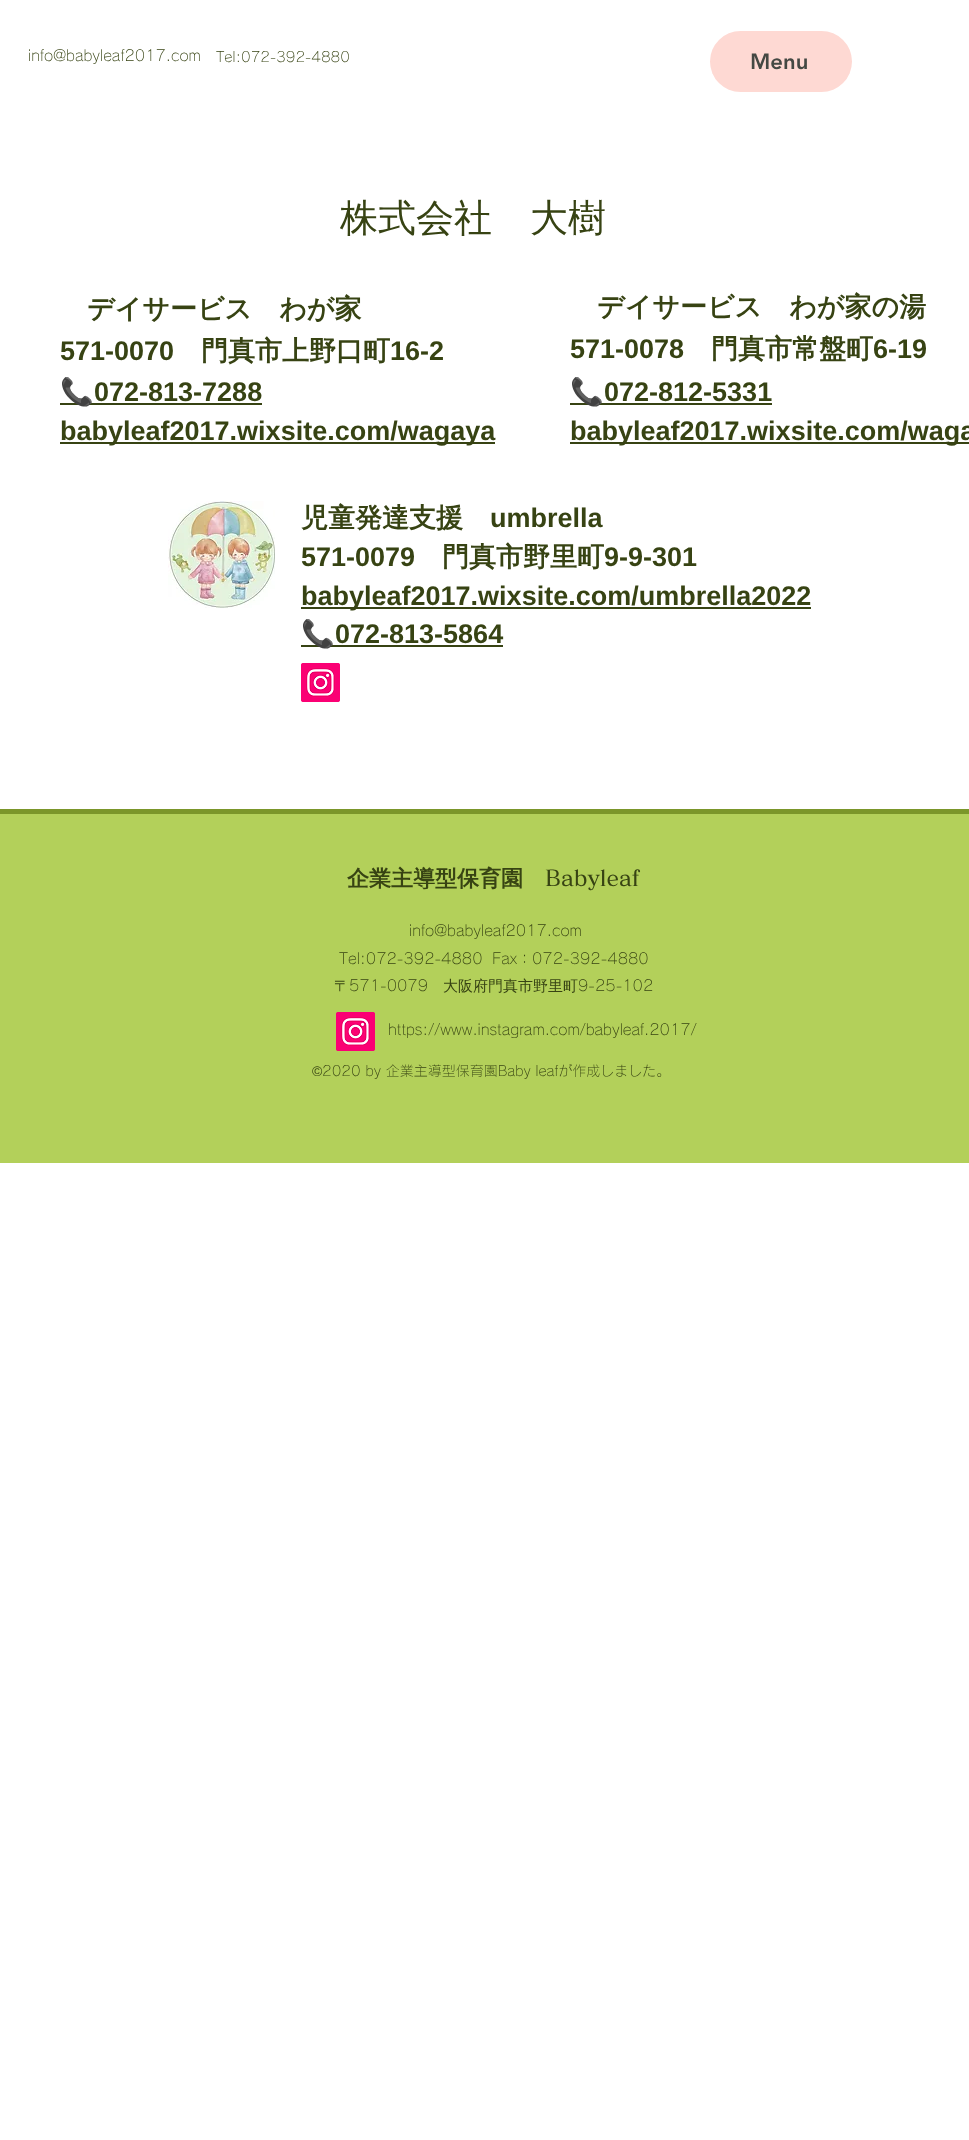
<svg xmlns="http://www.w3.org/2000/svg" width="969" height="2140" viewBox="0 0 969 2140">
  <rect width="100%" height="100%" fill="rgb(255,255,255)"/>
  <text x="28" y="61" font-family="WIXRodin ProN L" font-size="15" font-weight="300" fill="rgb(55,67,19)">info@babyleaf2017.com</text>
  <text x="216" y="62" font-family="WIXRodin ProN L" font-size="14" font-weight="300" fill="rgb(55,67,19)">Tel:072-392-4880</text>
  <rect x="710" y="31" width="142" height="61" rx="30.5" fill="rgb(254,217,211)"/>
  <text x="750" y="69" font-family="'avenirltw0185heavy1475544'" font-size="22" font-weight="900" fill="rgb(68,72,67)">Menu</text>
  <text x="340" y="231" font-family="WenQuanYi Zen Hei" font-size="38" font-weight="500" fill="rgb(55,67,19)">株式会社　大樹</text>
  <text x="87" y="318" font-family="WenQuanYi Zen Hei" font-size="27" font-weight="bold" fill="rgb(55,67,19)">デイサービス　わが家</text>
  <text x="60" y="360" font-family="Liberation Sans" font-size="27" font-weight="bold" fill="rgb(55,67,19)">571-0070</text>
  <text x="201" y="360" font-family="WenQuanYi Zen Hei" font-size="27" font-weight="bold" fill="rgb(55,67,19)">門真市上野口町</text>
  <text x="390" y="360" font-family="Liberation Sans" font-size="27" font-weight="bold" fill="rgb(55,67,19)">16-2</text>
  <text x="597" y="316" font-family="WenQuanYi Zen Hei" font-size="27" font-weight="bold" fill="rgb(55,67,19)">デイサービス　わが家の湯</text>
  <text x="570" y="358" font-family="Liberation Sans" font-size="27" font-weight="bold" fill="rgb(55,67,19)">571-0078</text>
  <text x="711" y="358" font-family="WenQuanYi Zen Hei" font-size="27" font-weight="bold" fill="rgb(55,67,19)">門真市常盤町</text>
  <text x="873" y="358" font-family="Liberation Sans" font-size="27" font-weight="bold" fill="rgb(55,67,19)">6-19</text>
  <rect x="60" y="403" width="202" height="2" fill="rgb(55,67,19)"/>
  <text x="60" y="401" font-family="Noto Color Emoji" font-size="27" font-weight="bold" fill="rgb(55,67,19)">📞</text>
  <text x="94" y="401" font-family="Liberation Sans" font-size="27" font-weight="bold" fill="rgb(55,67,19)">072-813-7288</text>
  <rect x="570" y="403" width="202" height="2" fill="rgb(55,67,19)"/>
  <text x="570" y="401" font-family="Noto Color Emoji" font-size="27" font-weight="bold" fill="rgb(55,67,19)">📞</text>
  <text x="604" y="401" font-family="Liberation Sans" font-size="27" font-weight="bold" fill="rgb(55,67,19)">072-812-5331</text>
  <rect x="60" y="442" width="435" height="2" fill="rgb(55,67,19)"/>
  <text x="60" y="440" font-family="Liberation Sans" font-size="27" font-weight="bold" fill="rgb(55,67,19)">babyleaf2017.wixsite.com/wagaya</text>
  <rect x="570" y="442" width="399" height="2" fill="rgb(55,67,19)"/>
  <text x="570" y="440" font-family="Liberation Sans" font-size="27" font-weight="bold" fill="rgb(55,67,19)">babyleaf2017.wixsite.com/waga</text>
  <image x="168" y="501" width="107" height="107" href="pic1.png"/>
  <text x="301" y="527" font-family="WenQuanYi Zen Hei" font-size="27" font-weight="bold" fill="rgb(55,67,19)">児童発達支援</text>
  <g font-family="Liberation Sans" font-size="27" font-weight="bold" fill="rgb(55,67,19)">
    <text x="490" y="527">umbrella</text>
    <text x="301" y="566">571-0079</text>
  </g>
  <text x="442" y="566" font-family="WenQuanYi Zen Hei" font-size="27" font-weight="bold" fill="rgb(55,67,19)">門真市野里町</text>
  <text x="604" y="566" font-family="Liberation Sans" font-size="27" font-weight="bold" fill="rgb(55,67,19)">9-9-301</text>
  <rect x="301" y="607" width="510" height="2" fill="rgb(55,67,19)"/>
  <text x="301" y="605" font-family="Liberation Sans" font-size="27" font-weight="bold" fill="rgb(55,67,19)">babyleaf2017.wixsite.com/umbrella2022</text>
  <rect x="301" y="645" width="202" height="2" fill="rgb(55,67,19)"/>
  <text x="301" y="643" font-family="Noto Color Emoji" font-size="27" font-weight="bold" fill="rgb(55,67,19)">📞</text>
  <text x="335" y="643" font-family="Liberation Sans" font-size="27" font-weight="bold" fill="rgb(55,67,19)">072-813-5864</text>
  <image x="301" y="663" width="39" height="39" href="pic2.png"/>
  <rect x="0" y="814" width="969" height="349" fill="rgb(179,208,90)"/>
  <rect x="0" y="809" width="969" height="5" fill="rgb(123,150,42)"/>
  <text x="347" y="886" font-family="WenQuanYi Zen Hei" font-size="22" font-weight="bold" fill="rgb(55,67,19)">企業主導型保育園</text>
  <text x="545" y="886" font-family="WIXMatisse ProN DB" font-size="22" font-weight="600" fill="rgb(55,67,19)">Babyleaf</text>
  <g font-family="WIXRodin ProN L" font-size="15" font-weight="300" fill="rgb(55,67,19)">
    <text x="409" y="936">info@babyleaf2017.com</text>
    <text x="339" y="964">Tel:072-392-4880</text>
    <text x="492" y="964">Fax：072-392-4880</text>
  </g>
  <text x="334" y="991" font-family="WenQuanYi Zen Hei" font-size="15" font-weight="500" fill="rgb(55,67,19)">〒</text>
  <text x="349" y="991" font-family="WIXRodin ProN L" font-size="15" font-weight="300" fill="rgb(55,67,19)">571-0079</text>
  <text x="443" y="991" font-family="WenQuanYi Zen Hei" font-size="15" font-weight="500" fill="rgb(55,67,19)">大阪府門真市野里町</text>
  <text x="578" y="991" font-family="WIXRodin ProN L" font-size="15" font-weight="300" fill="rgb(55,67,19)">9-25-102</text>
  <image x="336" y="1012" width="39" height="39" href="pic3.png"/>
  <text x="388" y="1035" font-family="WIXRodin ProN L" font-size="15" font-weight="300" fill="rgb(55,67,19)">https://www.instagram.com/babyleaf.2017/</text>
  <text x="312" y="1076" font-family="Liberation Sans" font-size="14" fill="rgb(55,67,19)">©</text>
  <text x="322" y="1076" font-family="WIXRodin ProN L" font-size="14" font-weight="300" fill="rgb(55,67,19)">2020 by 企業主導型保育園Baby leafが作成しました。</text>
</svg>
